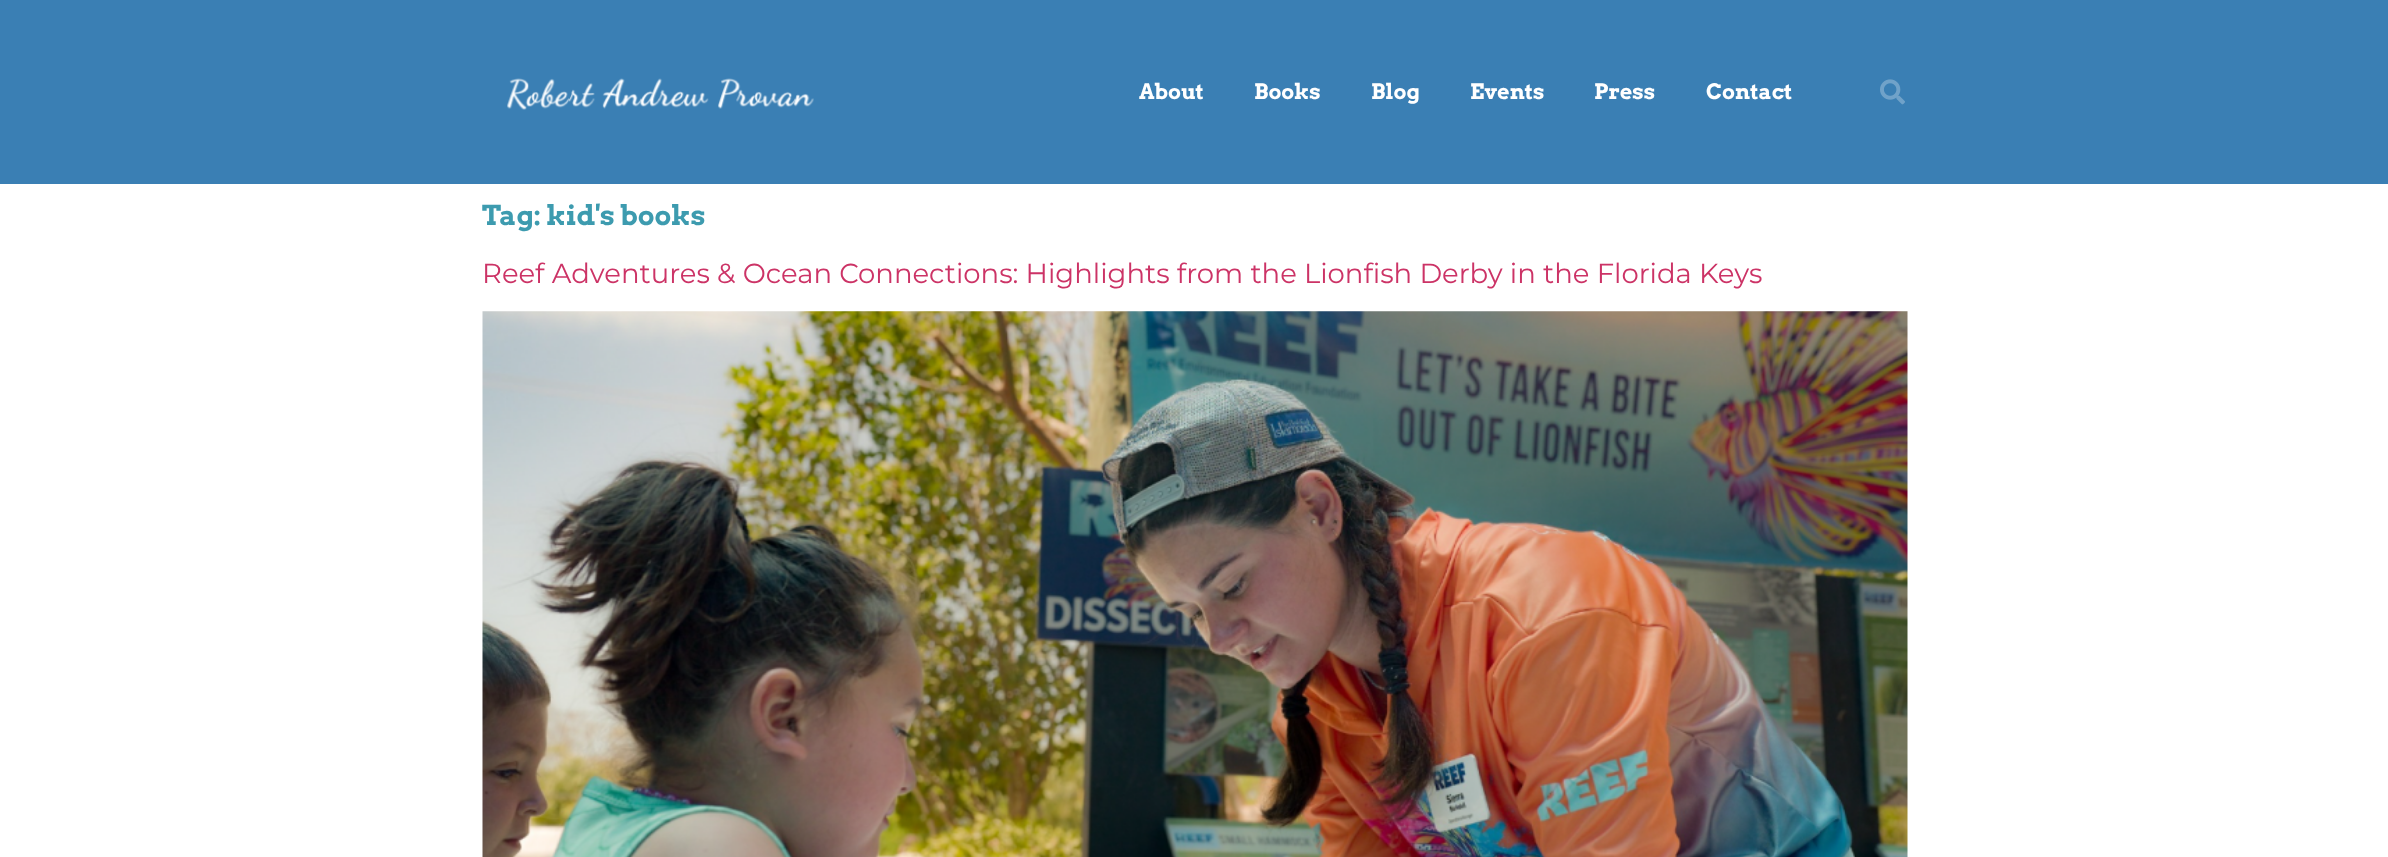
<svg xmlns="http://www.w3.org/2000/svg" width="2388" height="857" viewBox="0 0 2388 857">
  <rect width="100%" height="100%" fill="rgb(255,255,255)"/>
  <rect x="0" y="0" width="2388" height="184" fill="rgb(58,127,180)"/>
  <image x="507" y="78" width="307" height="32" href="pic1.png"/>
  <g font-family="Arvo" font-size="21.25" font-weight="bold" fill="rgb(255,255,255)">
    <text x="1139" y="99">About</text>
    <text x="1254" y="99">Books</text>
    <text x="1371" y="99">Blog</text>
    <text x="1470" y="99">Events</text>
    <text x="1594" y="99">Press</text>
    <text x="1706" y="99">Contact</text>
  </g>
  <image x="1880" y="79" width="25" height="26" href="pic2.png"/>
  <text x="482" y="225" font-family="Arvo" font-size="27.5" font-weight="bold" fill="rgb(61,155,175)">Tag: kid's books</text>
  <text x="482" y="283" font-family="Montserrat" font-size="27.5" fill="rgb(204,51,102)">Reef Adventures &amp; Ocean Connections: Highlights from the Lionfish Derby in the Florida Keys</text>
  <image x="482" y="311" width="1426" height="546" href="pic3.png"/>
</svg>
